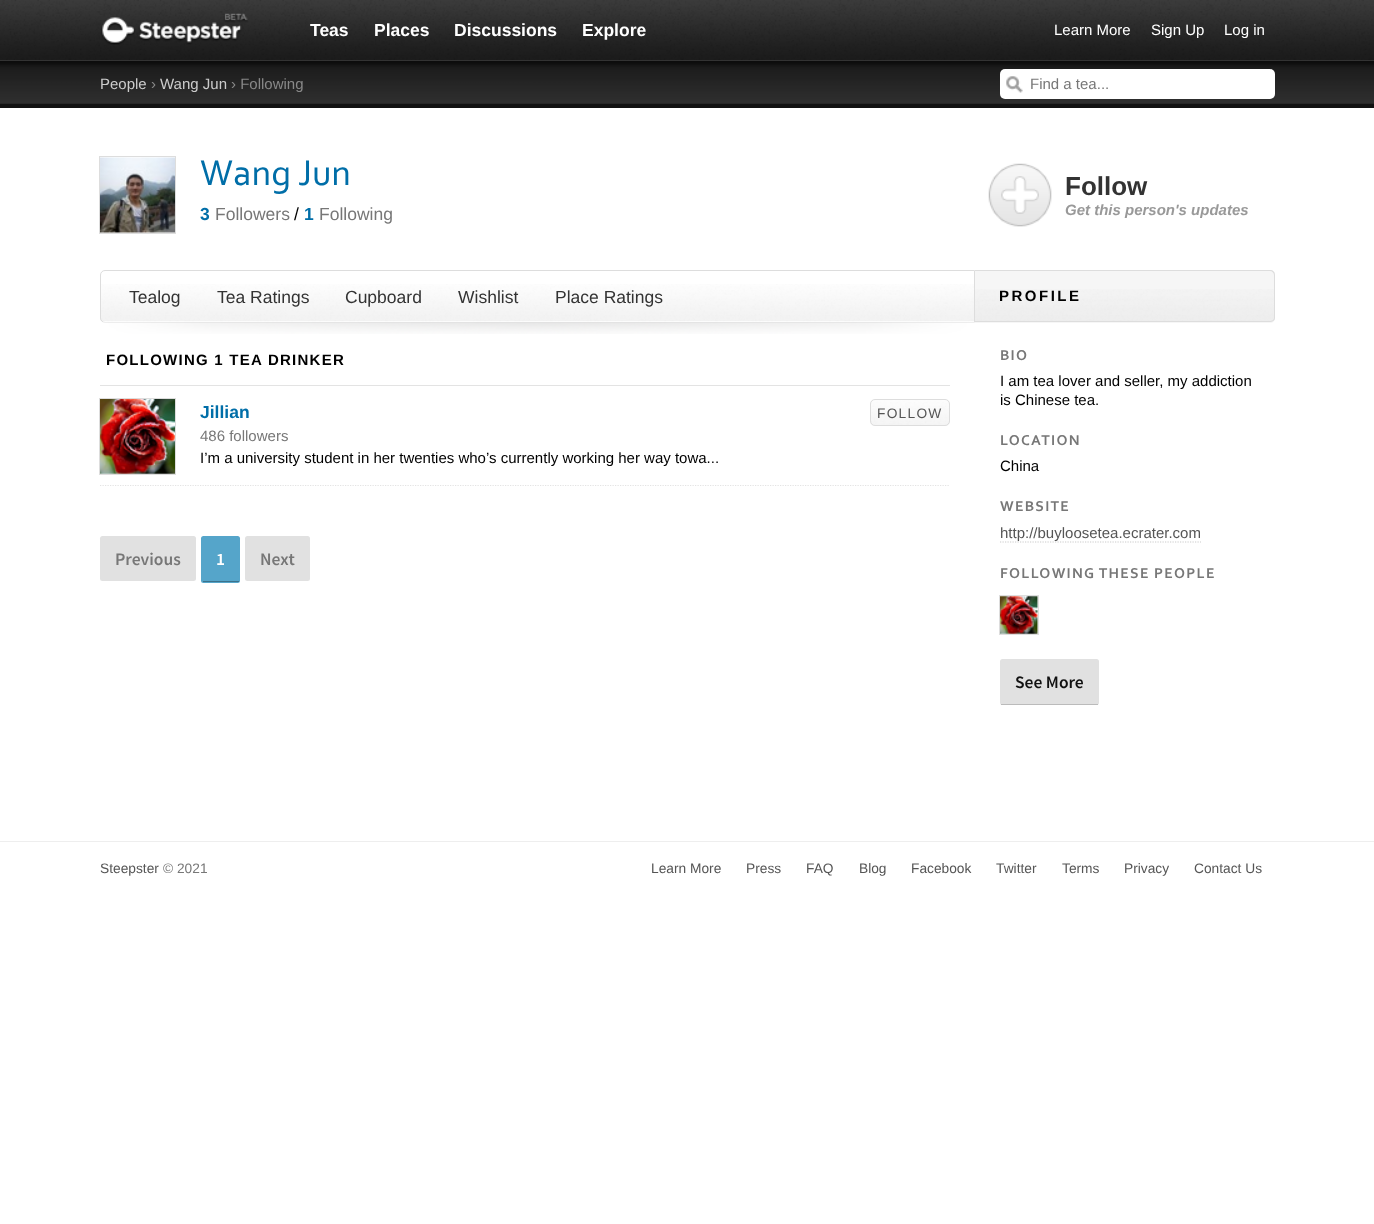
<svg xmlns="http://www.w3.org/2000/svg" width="1374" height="1224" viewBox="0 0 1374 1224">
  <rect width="100%" height="100%" fill="rgb(255,255,255)"/>
  <image x="0" y="0" width="1374" height="60" href="pic1.png"/>
  <image x="101" y="13" width="147" height="32" href="pic2.png"/>
  <g font-family="Liberation Sans" font-size="17.5" font-weight="bold" fill="rgb(255,255,255)">
    <text x="310" y="36">Teas</text>
    <text x="374" y="36">Places</text>
    <text x="454" y="36">Discussions</text>
    <text x="582" y="36">Explore</text>
  </g>
  <g font-family="Liberation Sans" font-size="15" fill="rgb(255,255,255)">
    <text x="1054" y="35">Learn More</text>
    <text x="1151" y="35">Sign Up</text>
    <text x="1224" y="35">Log in</text>
  </g>
  <rect x="0" y="61" width="1374" height="47" fill="rgb(17,17,17)"/>
  <image x="0" y="61" width="1374" height="43" href="pic3.png"/>
  <rect x="0" y="60" width="1374" height="1" fill="rgb(51,51,51)"/>
  <text x="100" y="89" font-family="Liberation Sans" font-size="15" fill="rgb(204,204,204)">People</text>
  <text x="151" y="89" font-family="Liberation Sans" font-size="15" fill="rgb(136,136,136)">›</text>
  <text x="160" y="89" font-family="Liberation Sans" font-size="15" fill="rgb(204,204,204)">Wang Jun</text>
  <text x="231" y="89" font-family="Liberation Sans" font-size="15" fill="rgb(136,136,136)">› Following</text>
  <rect x="1000" y="69" width="275" height="30" rx="5" fill="rgb(255,255,255)"/>
  <image x="1006" y="76" width="17" height="17" href="pic4.png"/>
  <text x="1030" y="89" font-family="Liberation Sans" font-size="15" fill="rgb(119,119,119)">Find a tea...</text>
  <image x="100" y="157" width="75" height="76" href="pic5.png"/>
  <rect x="99.5" y="156.5" width="76" height="77" fill="none" stroke="rgb(221,221,221)"/>
  <text x="200" y="185" font-family="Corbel" font-size="37.5" fill="rgb(0,110,168)">Wang Jun</text>
  <text x="200" y="220" font-family="Liberation Sans" font-size="17.5" font-weight="bold" fill="rgb(0,110,168)">3</text>
  <text x="215" y="220" font-family="Liberation Sans" font-size="17.5" fill="rgb(119,119,119)">Followers</text>
  <text x="294" y="220" font-family="Liberation Sans" font-size="17.5" fill="rgb(0,0,0)">/</text>
  <text x="304" y="220" font-family="Liberation Sans" font-size="17.5" font-weight="bold" fill="rgb(0,110,168)">1</text>
  <text x="319" y="220" font-family="Liberation Sans" font-size="17.5" fill="rgb(119,119,119)">Following</text>
  <image x="100" y="284" width="874" height="38" href="pic6.png"/>
  <path d="M105 270.5H974.5V322.5H105C102.5 322.5 100.5 320.5 100.5 318V275C100.5 272.5 102.5 270.5 105 270.5Z" fill="none" stroke="rgb(221,221,221)"/>
  <g font-family="Liberation Sans" font-size="17.5" fill="rgb(51,51,51)">
    <text x="129" y="303">Tealog</text>
    <text x="217" y="303">Tea Ratings</text>
    <text x="345" y="303">Cupboard</text>
    <text x="458" y="303">Wishlist</text>
    <text x="555" y="303">Place Ratings</text>
  </g>
  <image x="102" y="322" width="873" height="12" href="pic7.png"/>
  <text x="106" y="365" font-family="Liberation Sans" font-size="15" font-weight="bold" letter-spacing="1.25" fill="rgb(0,0,0)">FOLLOWING 1 TEA DRINKER</text>
  <rect x="100" y="385" width="850" height="1" fill="rgb(227,227,227)"/>
  <path d="M100 485.5H950" fill="none" stroke="rgb(227,227,227)" stroke-width="1.2" stroke-dasharray="1.25 1.25"/>
  <image x="100" y="399" width="75" height="75" href="pic8.png"/>
  <rect x="99.5" y="398.5" width="76" height="76" fill="none" stroke="rgb(221,221,221)"/>
  <text x="200" y="418" font-family="Liberation Sans" font-size="17.5" font-weight="bold" fill="rgb(0,110,168)">Jillian</text>
  <text x="200" y="441" font-family="Liberation Sans" font-size="15" fill="rgb(119,119,119)">486 followers</text>
  <text x="200" y="463" font-family="Liberation Sans" font-size="15" fill="rgb(0,0,0)">I’m a university student in her twenties who’s currently working her way towa...</text>
  <image x="870" y="399" width="80" height="27" href="pic9.png"/>
  <rect x="870.5" y="399.5" width="79" height="26" rx="4.5" fill="none" stroke="rgb(221,221,221)"/>
  <text x="877" y="418" font-family="Liberation Sans" font-size="13.75" letter-spacing="1.25" fill="rgb(85,85,85)">FOLLOW</text>
  <rect x="100" y="536" width="96" height="45" rx="2.5" fill="rgb(225,225,225)"/>
  <text x="115" y="565" font-family="Source Sans Pro" font-size="17.5" font-weight="600" fill="rgb(119,119,119)">Previous</text>
  <rect x="201" y="536" width="39" height="47" rx="2.5" fill="rgb(85,165,202)"/>
  <rect x="203" y="581" width="36" height="1" fill="rgb(60,114,139)"/>
  <text x="216" y="565" font-family="Source Sans Pro" font-size="17.5" font-weight="600" fill="rgb(255,255,255)">1</text>
  <rect x="245" y="536" width="65" height="45" rx="2.5" fill="rgb(225,225,225)"/>
  <text x="260" y="565" font-family="Source Sans Pro" font-size="17.5" font-weight="600" fill="rgb(119,119,119)">Next</text>
  <image x="988" y="163" width="64" height="64" href="pic10.png"/>
  <text x="1065" y="195" font-family="Liberation Sans" font-size="26" font-weight="bold" fill="rgb(51,51,51)">Follow</text>
  <text x="1065" y="215" font-family="Liberation Sans" font-size="15" font-weight="bold" font-style="italic" fill="rgb(153,153,153)">Get this person's updates</text>
  <path d="M975 270H1270C1273 270 1275 272 1275 275V318C1275 321 1273 323 1270 323H975Z" fill="rgb(246,246,246)"/>
  <image x="975" y="289" width="300" height="32" href="pic11.png"/>
  <path d="M975 270H1270C1273 270 1275 272 1275 275V318C1275 320 1273 322 1270 322H975ZM975 271H1270C1272 271 1274 273 1274 275V318C1274 320 1272 321 1270 321H975Z" fill="rgb(221,221,221)" fill-rule="evenodd"/>
  <text x="999" y="301" font-family="Liberation Sans" font-size="15" font-weight="bold" letter-spacing="2.5" fill="rgb(0,0,0)">PROFILE</text>
  <text x="1000" y="360" font-family="Corbel" font-size="15" font-weight="bold" letter-spacing="1.25" fill="rgb(119,119,119)">BIO</text>
  <g font-family="Liberation Sans" font-size="15" fill="rgb(0,0,0)">
    <text>
      <tspan x="1000" y="386">I am tea lover and seller, my addiction</tspan>
      <tspan x="1000" y="405">is Chinese tea.</tspan>
    </text>
  </g>
  <text x="1000" y="445" font-family="Corbel" font-size="15" font-weight="bold" letter-spacing="1.25" fill="rgb(119,119,119)">LOCATION</text>
  <text x="1000" y="471" font-family="Liberation Sans" font-size="15" fill="rgb(0,0,0)">China</text>
  <text x="1000" y="511" font-family="Corbel" font-size="15" font-weight="bold" letter-spacing="1.25" fill="rgb(119,119,119)">WEBSITE</text>
  <path d="M1000 542H1201" fill="none" stroke="rgb(204,204,204)" stroke-width="1.2" stroke-dasharray="1.25 1.25"/>
  <text x="1000" y="538" font-family="Liberation Sans" font-size="15" fill="rgb(85,85,85)">http://buyloosetea.ecrater.com</text>
  <text x="1000" y="578" font-family="Corbel" font-size="15" font-weight="bold" letter-spacing="1.25" fill="rgb(119,119,119)">FOLLOWING THESE PEOPLE</text>
  <image x="1000" y="596" width="38" height="38" href="pic12.png"/>
  <rect x="999.5" y="595.5" width="39" height="39" fill="none" stroke="rgb(221,221,221)"/>
  <rect x="1000" y="659" width="99" height="46" rx="2.5" fill="rgb(225,225,225)"/>
  <rect x="1001" y="704" width="97" height="1" fill="rgb(187,187,187)"/>
  <text x="1015" y="688" font-family="Source Sans Pro" font-size="17.5" font-weight="600" fill="rgb(17,17,17)">See More</text>
  <rect x="0" y="841" width="1374" height="1" fill="rgb(238,238,238)"/>
  <text x="100" y="873" font-family="Liberation Sans" font-size="13.75" fill="rgb(85,85,85)">Steepster</text>
  <text x="163" y="873" font-family="Liberation Sans" font-size="13.75" fill="rgb(119,119,119)">© 2021</text>
  <g font-family="Liberation Sans" font-size="13.75" fill="rgb(85,85,85)">
    <text x="651" y="873">Learn More</text>
    <text x="746" y="873">Press</text>
    <text x="806" y="873">FAQ</text>
    <text x="859" y="873">Blog</text>
    <text x="911" y="873">Facebook</text>
    <text x="996" y="873">Twitter</text>
    <text x="1062" y="873">Terms</text>
    <text x="1124" y="873">Privacy</text>
    <text x="1194" y="873">Contact Us</text>
  </g>
</svg>
